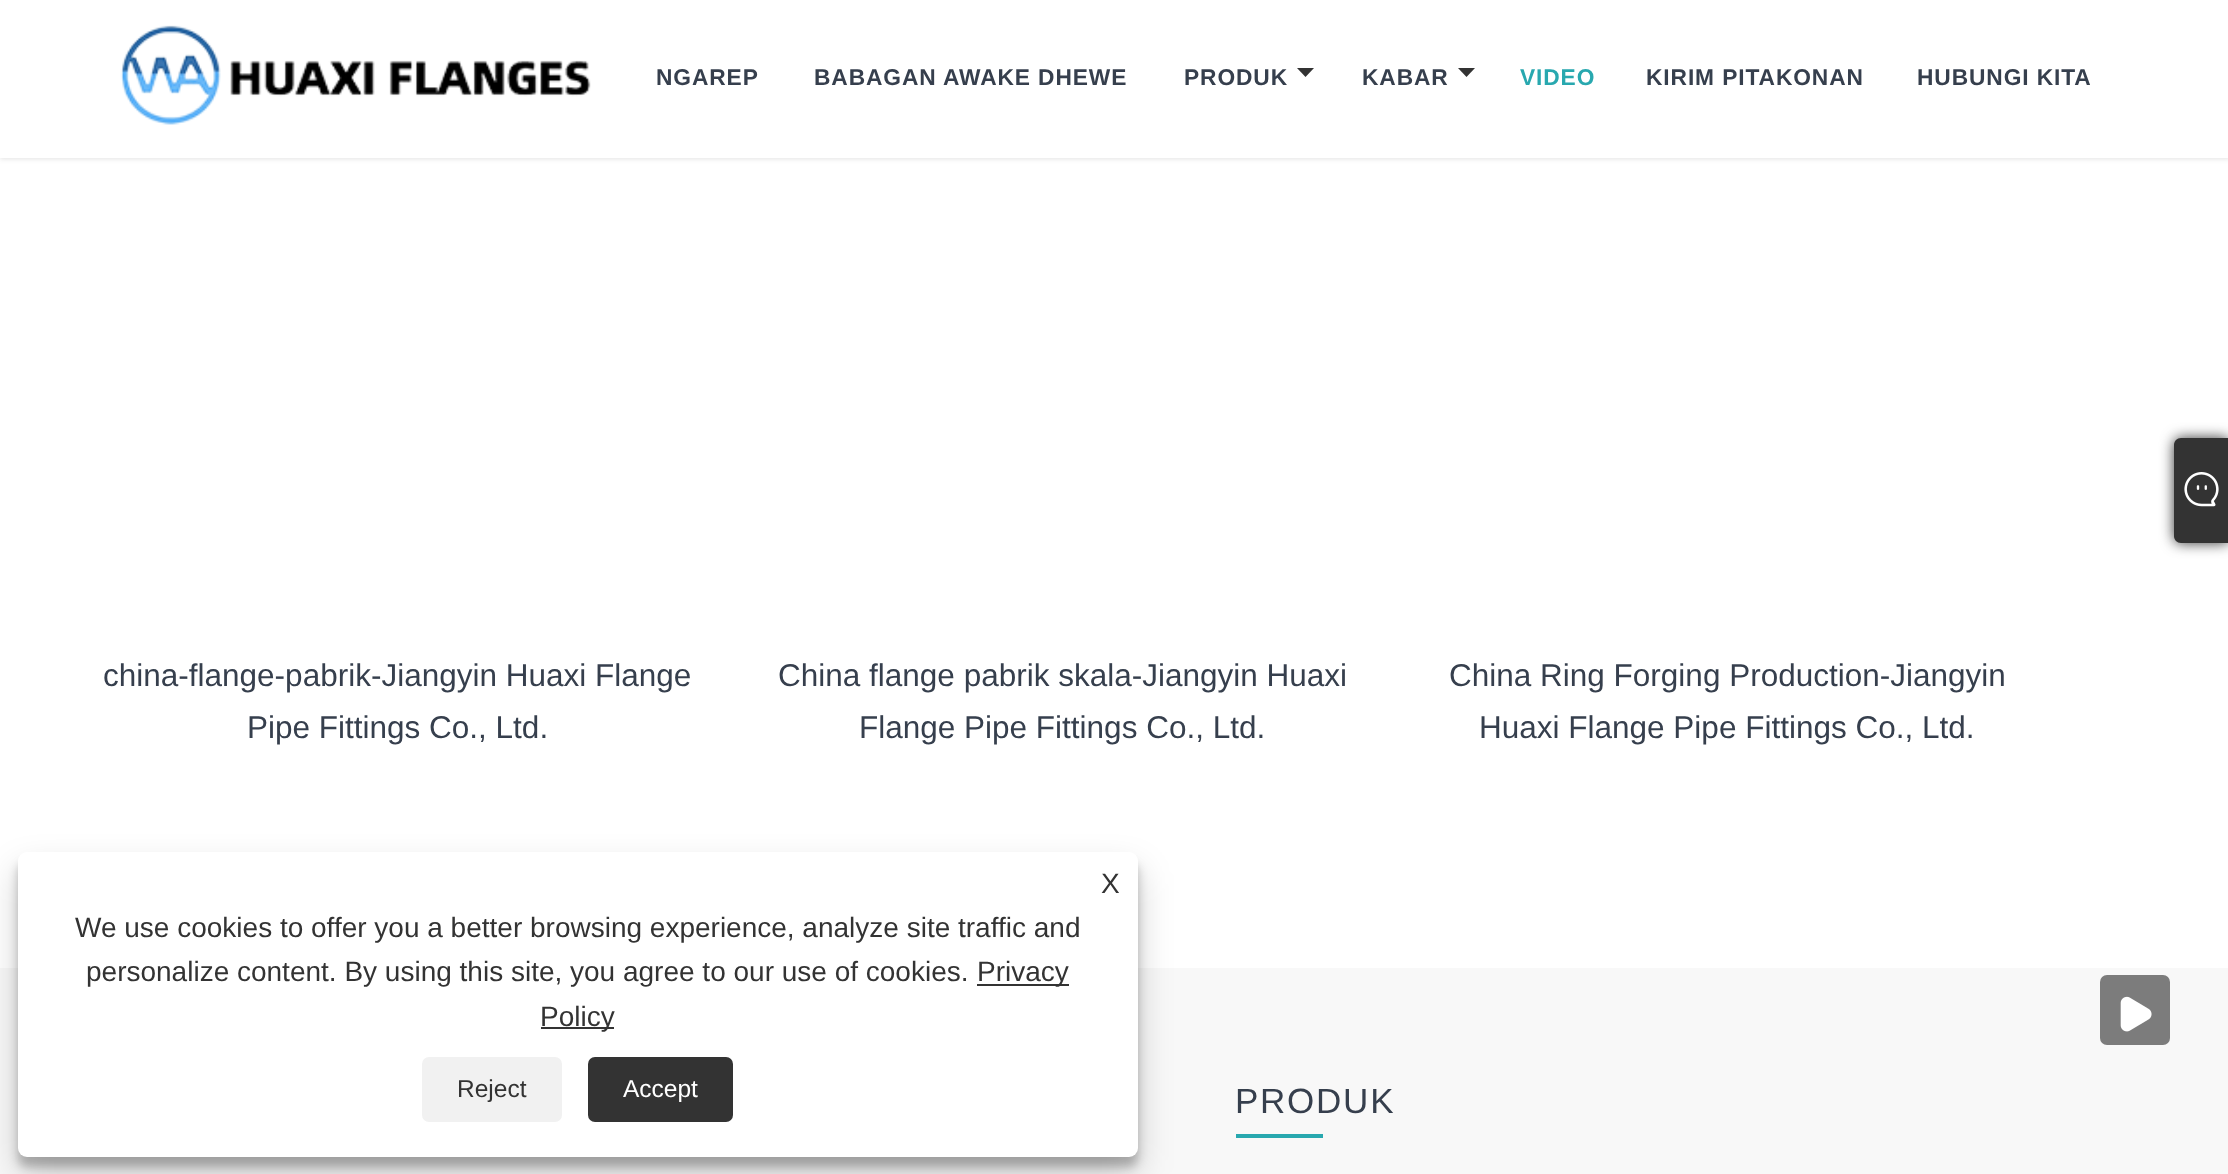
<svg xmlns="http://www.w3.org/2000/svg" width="2228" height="1174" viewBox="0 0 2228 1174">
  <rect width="100%" height="100%" fill="rgb(255,255,255)"/>
  <rect x="0" y="2" width="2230" height="157" fill="rgba(0,0,0,0.11)" filter="blur(2.5px)"/>
  <rect x="0" y="0" width="2228" height="158" fill="rgb(255,255,255)"/>
  <image x="120" y="25" width="471" height="100" href="pic1.png"/>
  <g font-family="Liberation Sans" font-size="22.75" font-weight="bold" letter-spacing="0.9" fill="rgb(54,63,77)">
    <text x="656" y="85">NGAREP</text>
    <text x="814" y="85">BABAGAN AWAKE DHEWE</text>
    <text x="1184" y="85">PRODUK</text>
  </g>
  <path d="M1297 68H1314L1305.5 77Z" fill="rgb(51,51,51)"/>
  <text x="1362" y="85" font-family="Liberation Sans" font-size="22.75" font-weight="bold" letter-spacing="0.9" fill="rgb(54,63,77)">KABAR</text>
  <path d="M1458 68H1475L1466.5 77Z" fill="rgb(51,51,51)"/>
  <text x="1520" y="85" font-family="Liberation Sans" font-size="22.75" font-weight="bold" letter-spacing="0.9" fill="rgb(40,168,175)">VIDEO</text>
  <g font-family="Liberation Sans" font-size="22.75" font-weight="bold" letter-spacing="0.9" fill="rgb(54,63,77)">
    <text x="1646" y="85">KIRIM PITAKONAN</text>
    <text x="1917" y="85">HUBUNGI KITA</text>
  </g>
  <rect x="2174" y="438" width="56" height="105" rx="7" fill="rgb(51,51,51)" filter="blur(7px)"/>
  <path d="M2181 438H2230V543H2181C2177 543 2174 540 2174 536V445C2174 441 2177 438 2181 438Z" fill="rgb(51,51,51)"/>
  <image x="2184" y="472" width="35" height="35" href="pic2.png"/>
  <g font-family="Liberation Sans" font-size="31.5" fill="rgb(54,63,77)">
    <text x="103" y="686">china-flange-pabrik-Jiangyin Huaxi Flange</text>
    <text x="247" y="738">Pipe Fittings Co., Ltd.</text>
    <text x="778" y="686">China flange pabrik skala-Jiangyin Huaxi</text>
    <text x="859" y="738">Flange Pipe Fittings Co., Ltd.</text>
    <text x="1449" y="686">China Ring Forging Production-Jiangyin</text>
    <text x="1479" y="738">Huaxi Flange Pipe Fittings Co., Ltd.</text>
  </g>
  <rect x="0" y="968" width="2228" height="206" fill="rgb(248,248,248)"/>
  <rect x="18" y="863" width="1120" height="304" rx="9" fill="rgba(0,0,0,0.23)" filter="blur(5px)"/>
  <rect x="18" y="870" width="1120" height="304" rx="9" fill="rgba(0,0,0,0.19)" filter="blur(17.5px)"/>
  <rect x="18" y="852" width="1120" height="305" rx="9" fill="rgb(255,255,255)"/>
  <g font-family="Liberation Sans" font-size="28" fill="rgb(51,51,51)">
    <text x="1101" y="893">X</text>
    <text x="75" y="937">We use cookies to offer you a better browsing experience, analyze site traffic and</text>
    <text x="86" y="981">personalize content. By using this site, you agree to our use of cookies.</text>
  </g>
  <rect x="977" y="984" width="92" height="2" fill="rgb(51,51,51)"/>
  <text x="977" y="981" font-family="Liberation Sans" font-size="28" fill="rgb(51,51,51)">Privacy</text>
  <rect x="541" y="1027" width="73" height="2" fill="rgb(51,51,51)"/>
  <text x="540" y="1026" font-family="Liberation Sans" font-size="28" fill="rgb(51,51,51)">Policy</text>
  <rect x="422" y="1057" width="140" height="65" rx="7" fill="rgb(241,241,241)"/>
  <text x="457" y="1097" font-family="Liberation Sans" font-size="24.5" fill="rgb(51,51,51)">Reject</text>
  <rect x="588" y="1057" width="145" height="65" rx="7" fill="rgb(51,51,51)"/>
  <text x="623" y="1097" font-family="Liberation Sans" font-size="24.5" fill="rgb(255,255,255)">Accept</text>
  <rect x="2100" y="975" width="70" height="70" rx="7" fill="rgb(124,124,124)"/>
  <image x="2120" y="996" width="32" height="36" href="pic3.png"/>
  <text x="1235" y="1113" font-family="Liberation Sans" font-size="35" letter-spacing="1.75" fill="rgb(54,63,77)">PRODUK</text>
  <rect x="1236" y="1134" width="87" height="4" fill="rgb(40,168,175)"/>
</svg>
